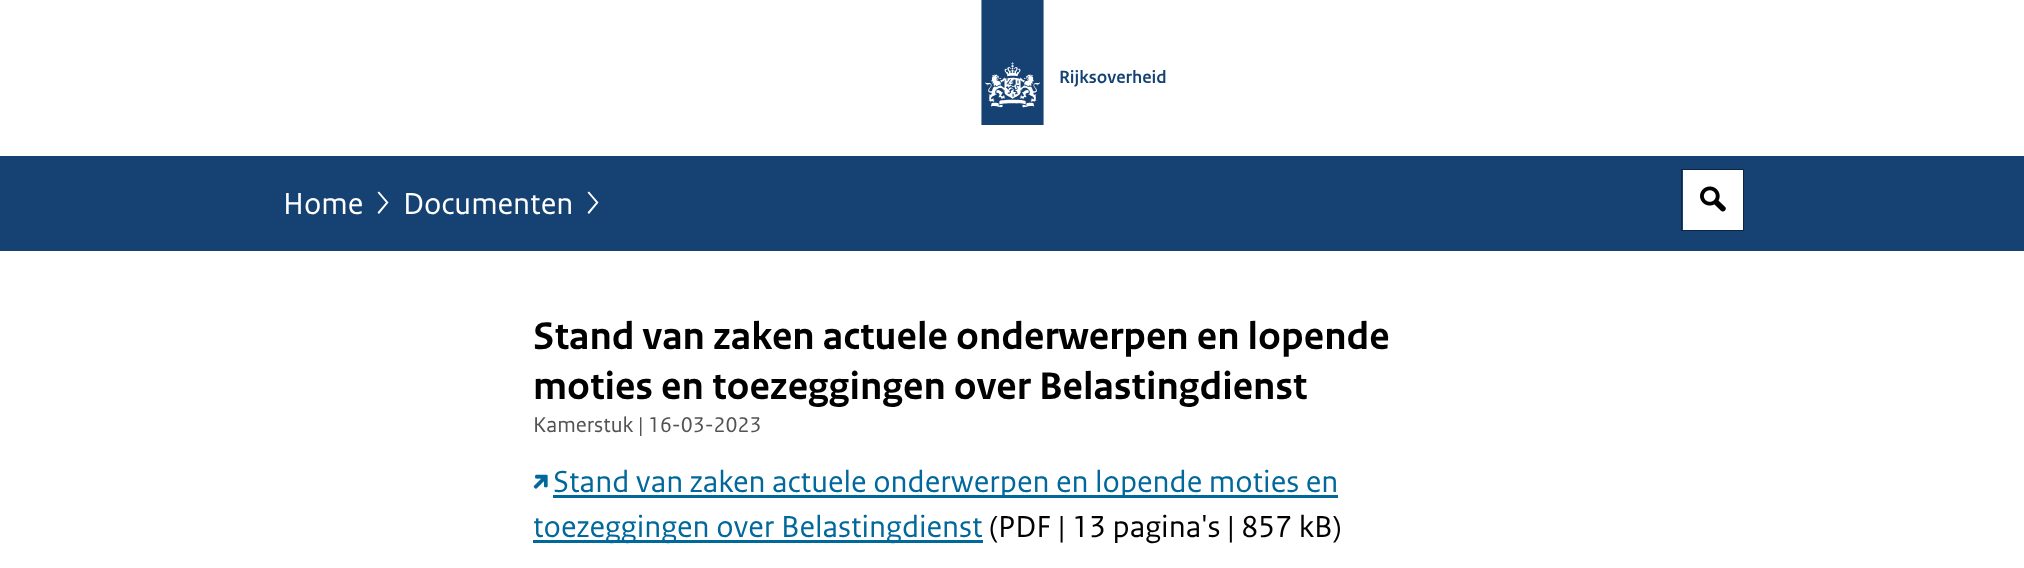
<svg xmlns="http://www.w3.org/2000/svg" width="2024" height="568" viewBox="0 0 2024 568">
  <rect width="100%" height="100%" fill="rgb(255,255,255)"/>
  <image x="981" y="0" width="63" height="125" href="pic1.png"/>
  <text x="1059" y="83" font-family="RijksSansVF" font-size="18.75" font-weight="600" fill="rgb(21,66,115)">Rijksoverheid</text>
  <rect x="0" y="156" width="2024" height="95" fill="rgb(21,66,115)"/>
  <text x="283" y="214" font-family="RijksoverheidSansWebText" font-size="32" fill="rgb(255,255,255)">Home</text>
  <path d="M379 214L377.5 212.5L386 202.5L377.5 192.5L379 191.5L388.5 202.5Z" fill="rgb(255,255,255)"/>
  <text x="403" y="214" font-family="RijksoverheidSansWebText" font-size="32" fill="rgb(255,255,255)">Documenten</text>
  <path d="M589 214L587.5 212.5L596 202.5L587.5 192.5L589 191.5L598.5 202.5Z" fill="rgb(255,255,255)"/>
  <rect x="1683" y="170" width="60" height="60" fill="rgb(255,255,255)"/>
  <rect x="1681.5" y="169.5" width="62" height="61" fill="none" stroke="rgb(12,37,64)"/>
  <image x="1700" y="186" width="26" height="26" href="pic2.png"/>
  <g font-family="RijksoverheidSansWebText" font-size="40.55" font-weight="bold" fill="rgb(0,0,0)">
    <text>
      <tspan x="533" y="349">Stand van zaken actuele onderwerpen en lopende</tspan>
      <tspan x="533" y="399">moties en toezeggingen over Belastingdienst</tspan>
    </text>
  </g>
  <text x="533" y="432" font-family="RijksoverheidSansWebText" font-size="22.5" fill="rgb(83,83,83)">Kamerstuk | 16-03-2023</text>
  <image x="533" y="474" width="15" height="15" href="pic3.png"/>
  <rect x="553" y="495" width="785" height="3" fill="rgb(1,104,155)"/>
  <text x="553" y="492" font-family="RijksoverheidSansWebText" font-size="32" fill="rgb(1,104,155)">Stand van zaken actuele onderwerpen en lopende moties en</text>
  <rect x="533" y="540" width="450" height="3" fill="rgb(1,104,155)"/>
  <text x="533" y="537" font-family="RijksoverheidSansWebText" font-size="32" fill="rgb(1,104,155)">toezeggingen over Belastingdienst</text>
  <text x="989" y="537" font-family="RijksoverheidSansWebText" font-size="32" fill="rgb(0,0,0)">(PDF | 13 pagina's | 857 kB)</text>
</svg>
